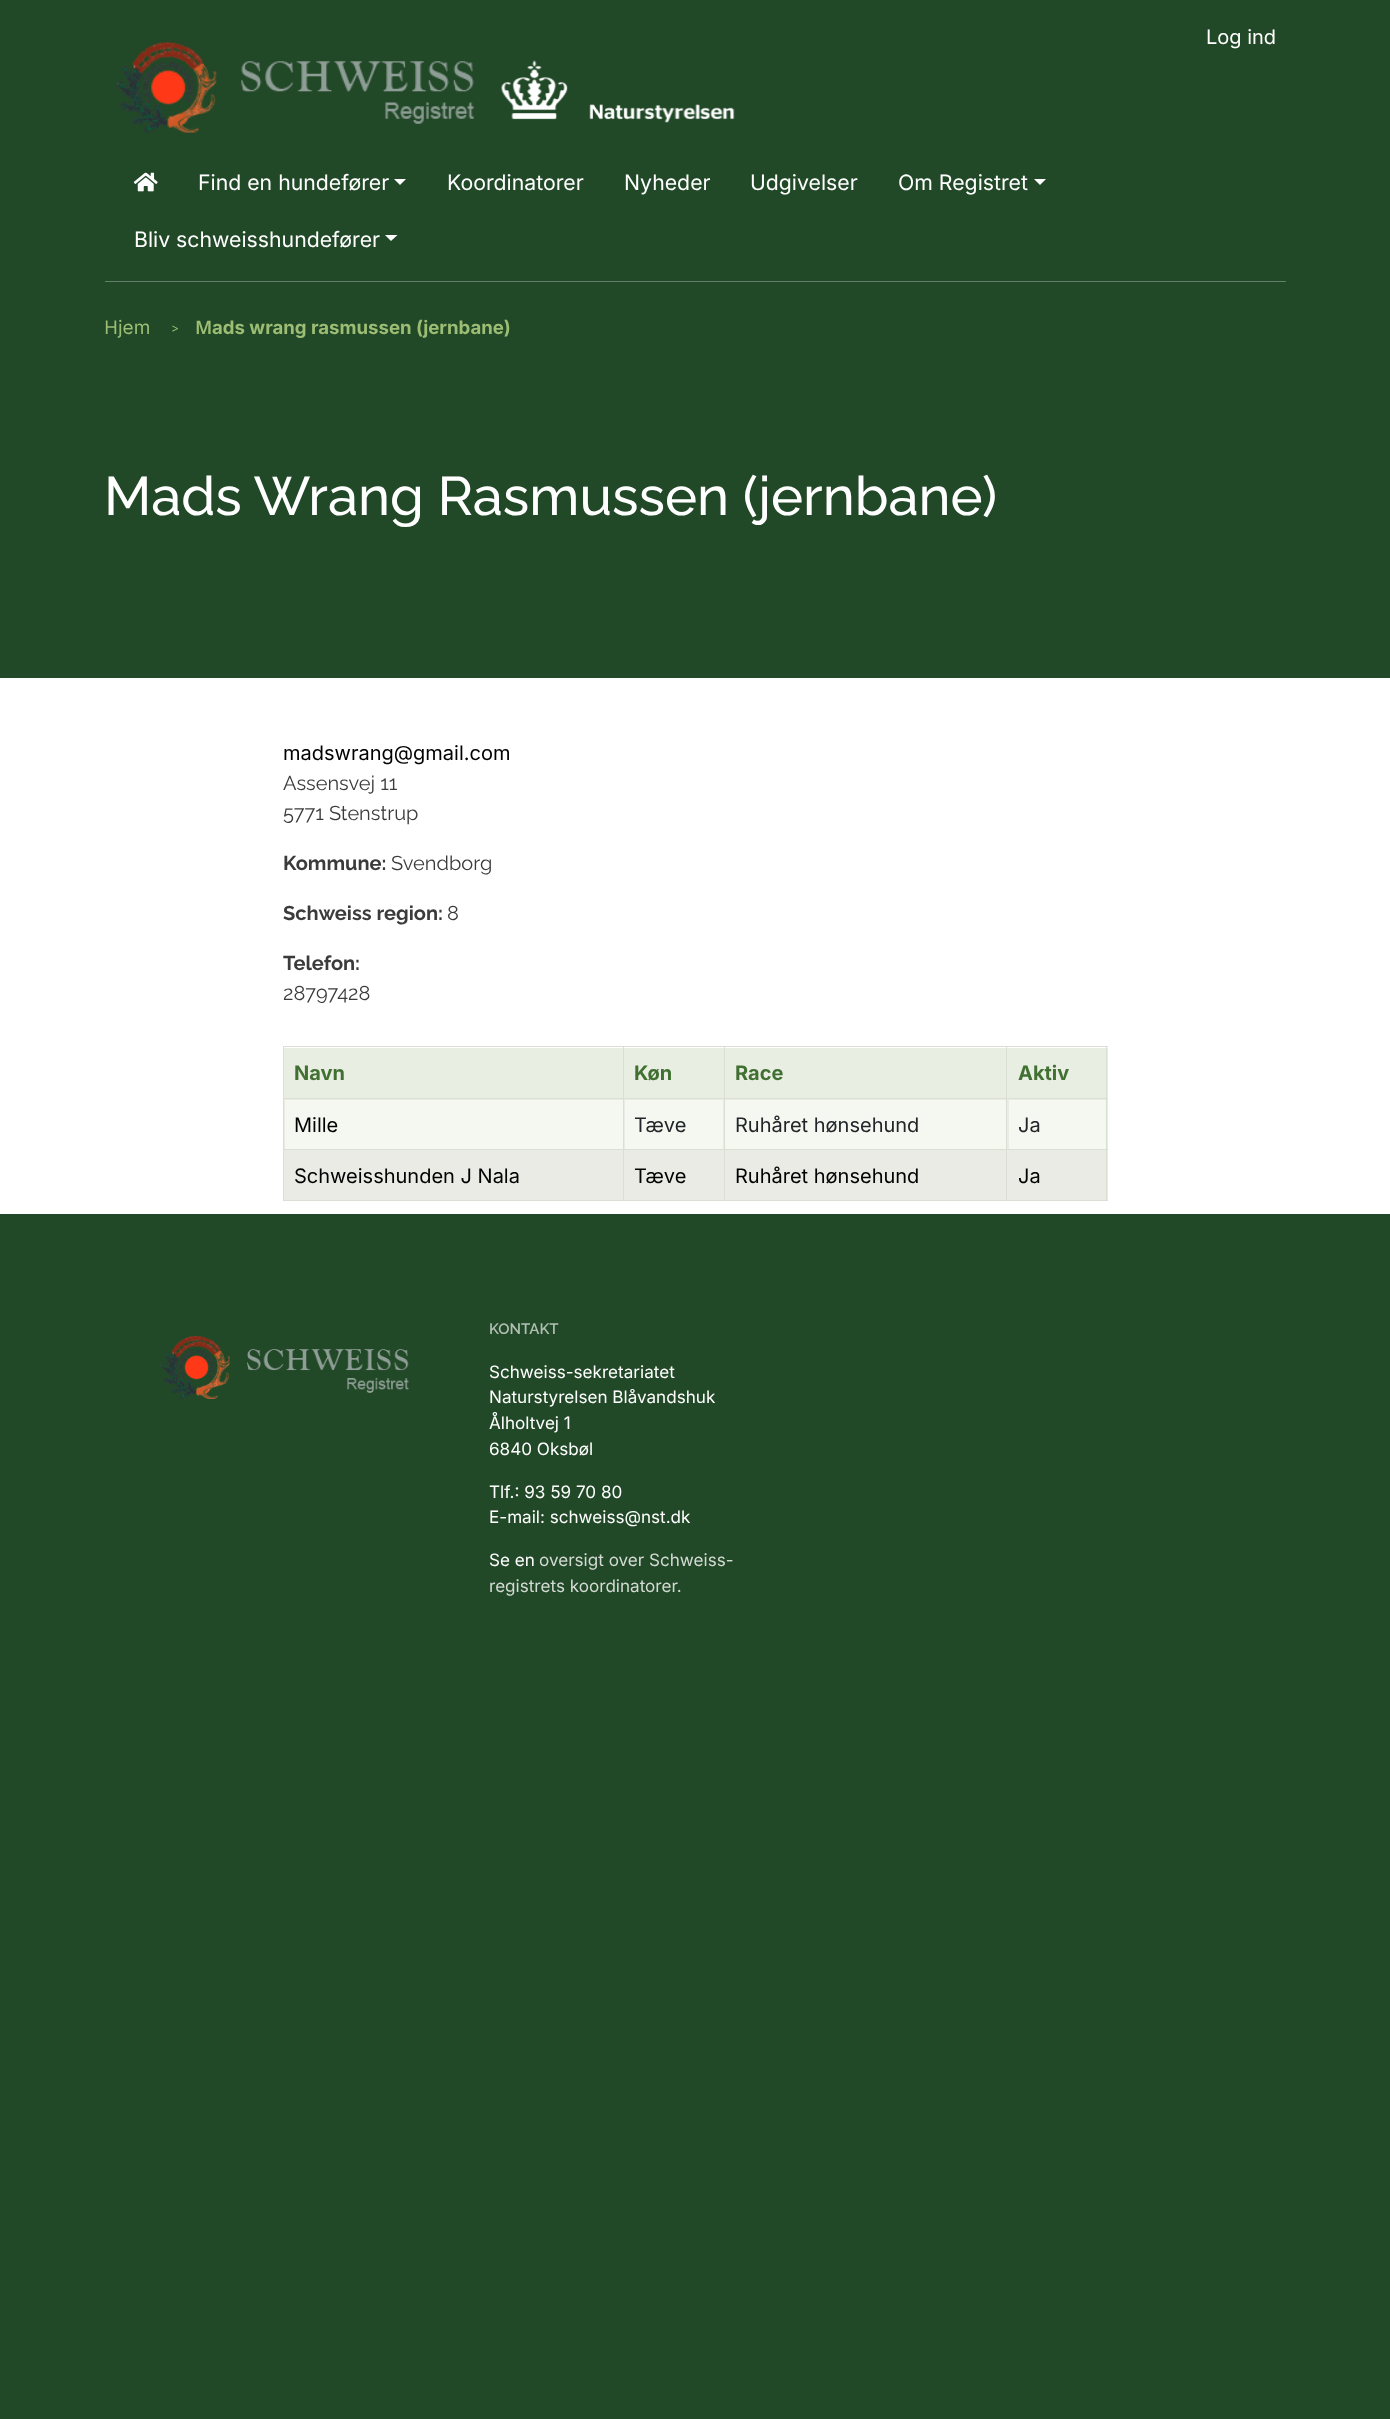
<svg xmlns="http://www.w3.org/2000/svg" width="1390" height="2419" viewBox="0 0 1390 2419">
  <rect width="100%" height="100%" fill="rgb(33,72,39)"/>
  <rect x="0" y="678" width="1390" height="536" fill="rgb(255,255,255)"/>
  <text x="1206" y="44" font-family="Inter" font-size="20" fill="rgb(255,255,255)">Log ind</text>
  <image x="117" y="42" width="357" height="91" href="pic1.png"/>
  <image x="501" y="60" width="234" height="63" href="pic2.png"/>
  <image x="133" y="172" width="25" height="20" href="pic3.png"/>
  <text x="198" y="190" font-family="Inter" font-size="21.25" fill="rgb(255,255,255)">Find en hundefører</text>
  <path d="M394 179H406L400 185Z" fill="rgb(255,255,255)"/>
  <g font-family="Inter" font-size="21.25" fill="rgb(255,255,255)">
    <text x="447" y="190">Koordinatorer</text>
    <text x="624" y="190">Nyheder</text>
    <text x="750" y="190">Udgivelser</text>
    <text x="898" y="190">Om Registret</text>
  </g>
  <path d="M1034 179H1046L1040 185Z" fill="rgb(255,255,255)"/>
  <text x="134" y="247" font-family="Inter" font-size="21.25" fill="rgb(255,255,255)">Bliv schweisshundefører</text>
  <path d="M385 235H397.5L391 241Z" fill="rgb(255,255,255)"/>
  <rect x="105" y="281" width="1181" height="1" fill="rgb(100,127,104)"/>
  <text x="104" y="334" font-family="Noto Sans" font-size="19" fill="rgb(156,189,115)">H</text>
  <text x="118" y="334" font-family="Inter" font-size="19" fill="rgb(156,189,115)">jem</text>
  <text x="171" y="332" font-family="Inter" font-size="12" fill="rgb(156,189,115)">&gt;</text>
  <text x="195" y="334" font-family="Noto Sans" font-size="18.6" font-weight="600" fill="rgb(156,189,115)">M</text>
  <text x="212" y="334" font-family="Inter" font-size="18.6" font-weight="bold" fill="rgb(156,189,115)">ads wrang rasmussen (jernbane)</text>
  <text x="104" y="515" font-family="Raleway" font-size="54.25" font-weight="500" fill="rgb(255,255,255)">Mads Wrang Rasmussen (jernbane)</text>
  <text x="283" y="760" font-family="Inter" font-size="20" fill="rgb(0,0,0)">madswrang@gmail.com</text>
  <g font-family="Raleway" font-size="20" fill="rgb(59,59,59)">
    <text>
      <tspan x="283" y="790">Assensvej 11</tspan>
      <tspan x="283" y="820">5771 Stenstrup</tspan>
    </text>
  </g>
  <text x="283" y="870" font-family="Raleway" font-size="20" font-weight="bold" fill="rgb(59,59,59)">Kommune:</text>
  <text x="391" y="870" font-family="Raleway" font-size="20" fill="rgb(59,59,59)">Svendborg</text>
  <text x="283" y="920" font-family="Raleway" font-size="20" font-weight="bold" fill="rgb(59,59,59)">Schweiss region:</text>
  <text x="447" y="920" font-family="Raleway" font-size="20" fill="rgb(59,59,59)">8</text>
  <text x="283" y="970" font-family="Raleway" font-size="20" font-weight="bold" fill="rgb(59,59,59)">Telefon:</text>
  <text x="283" y="1000" font-family="Raleway" font-size="20" fill="rgb(59,59,59)">28797428</text>
  <rect x="283" y="1098" width="825" height="1" fill="rgb(218,223,212)"/>
  <rect x="284" y="1048" width="339" height="50" fill="rgb(233,238,227)"/>
  <rect x="1006" y="1046" width="102" height="1" fill="rgb(218,223,212)"/>
  <rect x="725" y="1048" width="383" height="50" fill="rgb(233,238,227)"/>
  <rect x="284" y="1099" width="824" height="50" fill="rgb(233,235,228)"/>
  <rect x="1006" y="1149" width="102" height="1" fill="rgb(218,223,212)"/>
  <rect x="284" y="1150" width="824" height="50" fill="rgb(233,235,228)"/>
  <rect x="1106" y="1098" width="1" height="103" fill="rgb(218,223,212)"/>
  <rect x="1006" y="1200" width="102" height="1" fill="rgb(218,223,212)"/>
  <rect x="1006" y="1149" width="1" height="52" fill="rgb(218,223,212)"/>
  <rect x="724" y="1149" width="284" height="1" fill="rgb(218,223,212)"/>
  <rect x="1006" y="1098" width="1" height="52" fill="rgb(218,223,212)"/>
  <rect x="1006" y="1046" width="1" height="53" fill="rgb(218,223,212)"/>
  <rect x="724" y="1046" width="284" height="1" fill="rgb(218,223,212)"/>
  <rect x="724" y="1200" width="284" height="1" fill="rgb(218,223,212)"/>
  <rect x="724" y="1149" width="1" height="52" fill="rgb(218,223,212)"/>
  <rect x="623" y="1149" width="102" height="1" fill="rgb(218,223,212)"/>
  <rect x="724" y="1098" width="1" height="52" fill="rgb(218,223,212)"/>
  <rect x="724" y="1046" width="1" height="53" fill="rgb(218,223,212)"/>
  <rect x="623" y="1046" width="102" height="1" fill="rgb(218,223,212)"/>
  <rect x="623" y="1200" width="102" height="1" fill="rgb(218,223,212)"/>
  <rect x="623" y="1149" width="1" height="52" fill="rgb(218,223,212)"/>
  <rect x="283" y="1149" width="341" height="1" fill="rgb(218,223,212)"/>
  <rect x="623" y="1098" width="1" height="52" fill="rgb(218,223,212)"/>
  <rect x="623" y="1046" width="1" height="53" fill="rgb(218,223,212)"/>
  <rect x="283" y="1046" width="341" height="1" fill="rgb(218,223,212)"/>
  <rect x="283" y="1200" width="341" height="1" fill="rgb(218,223,212)"/>
  <rect x="283" y="1098" width="1" height="103" fill="rgb(218,223,212)"/>
  <rect x="283" y="1046" width="1" height="53" fill="rgb(218,223,212)"/>
  <text x="294" y="1080" font-family="Inter" font-size="20" font-weight="bold" fill="rgb(66,112,50)">Navn</text>
  <rect x="624" y="1048" width="100" height="50" fill="rgb(233,238,227)"/>
  <g font-family="Inter" font-size="20" font-weight="bold" fill="rgb(66,112,50)">
    <text x="634" y="1080">Køn</text>
    <text x="735" y="1080">Race</text>
  </g>
  <rect x="1106" y="1046" width="1" height="53" fill="rgb(218,223,212)"/>
  <text x="1018" y="1080" font-family="Inter" font-size="20" font-weight="bold" fill="rgb(66,112,50)">Aktiv</text>
  <rect x="285" y="1100" width="338" height="49" fill="rgb(244,248,240)"/>
  <text x="294" y="1132" font-family="Inter" font-size="20" fill="rgb(0,0,0)">Mille</text>
  <rect x="625" y="1100" width="98" height="49" fill="rgb(244,248,240)"/>
  <text x="634" y="1132" font-family="Inter" font-size="20" fill="rgb(33,37,41)">Tæve</text>
  <rect x="725" y="1100" width="281" height="49" fill="rgb(244,248,240)"/>
  <text x="735" y="1132" font-family="Inter" font-size="20" fill="rgb(33,37,41)">Ruhåret hønsehund</text>
  <rect x="1009" y="1100" width="97" height="49" fill="rgb(244,248,240)"/>
  <text x="1018" y="1132" font-family="Inter" font-size="20" fill="rgb(33,37,41)">Ja</text>
  <g font-family="Inter" font-size="20" fill="rgb(0,0,0)">
    <text x="294" y="1183">Schweisshunden J Nala</text>
    <text x="634" y="1183">Tæve</text>
    <text x="735" y="1183">Ruhåret hønsehund</text>
    <text x="1018" y="1183">Ja</text>
  </g>
  <image x="161" y="1336" width="248" height="63" href="pic4.png"/>
  <text x="489" y="1334" font-family="Raleway" font-size="15" font-weight="600" fill="rgb(177,191,179)">KONTAKT</text>
  <g font-family="Inter" font-size="17.1" fill="rgb(255,255,255)">
    <text>
      <tspan x="489" y="1378">Schweiss-sekretariatet</tspan>
      <tspan x="489" y="1403">Naturstyrelsen Blåvandshuk</tspan>
      <tspan x="489" y="1429">Ålholtvej 1</tspan>
      <tspan x="489" y="1455">6840 Oksbøl</tspan>
    </text>
    <text>
      <tspan x="489" y="1498">Tlf.: 93 59 70 80</tspan>
      <tspan x="489" y="1523">E-mail: schweiss@nst.dk</tspan>
    </text>
    <text x="489" y="1566">Se en</text>
  </g>
  <g font-family="Inter" font-size="17.1" fill="rgb(211,218,212)">
    <text x="539" y="1566">oversigt over Schweiss-</text>
    <text x="489" y="1592">registrets koordinatorer.</text>
  </g>
</svg>
